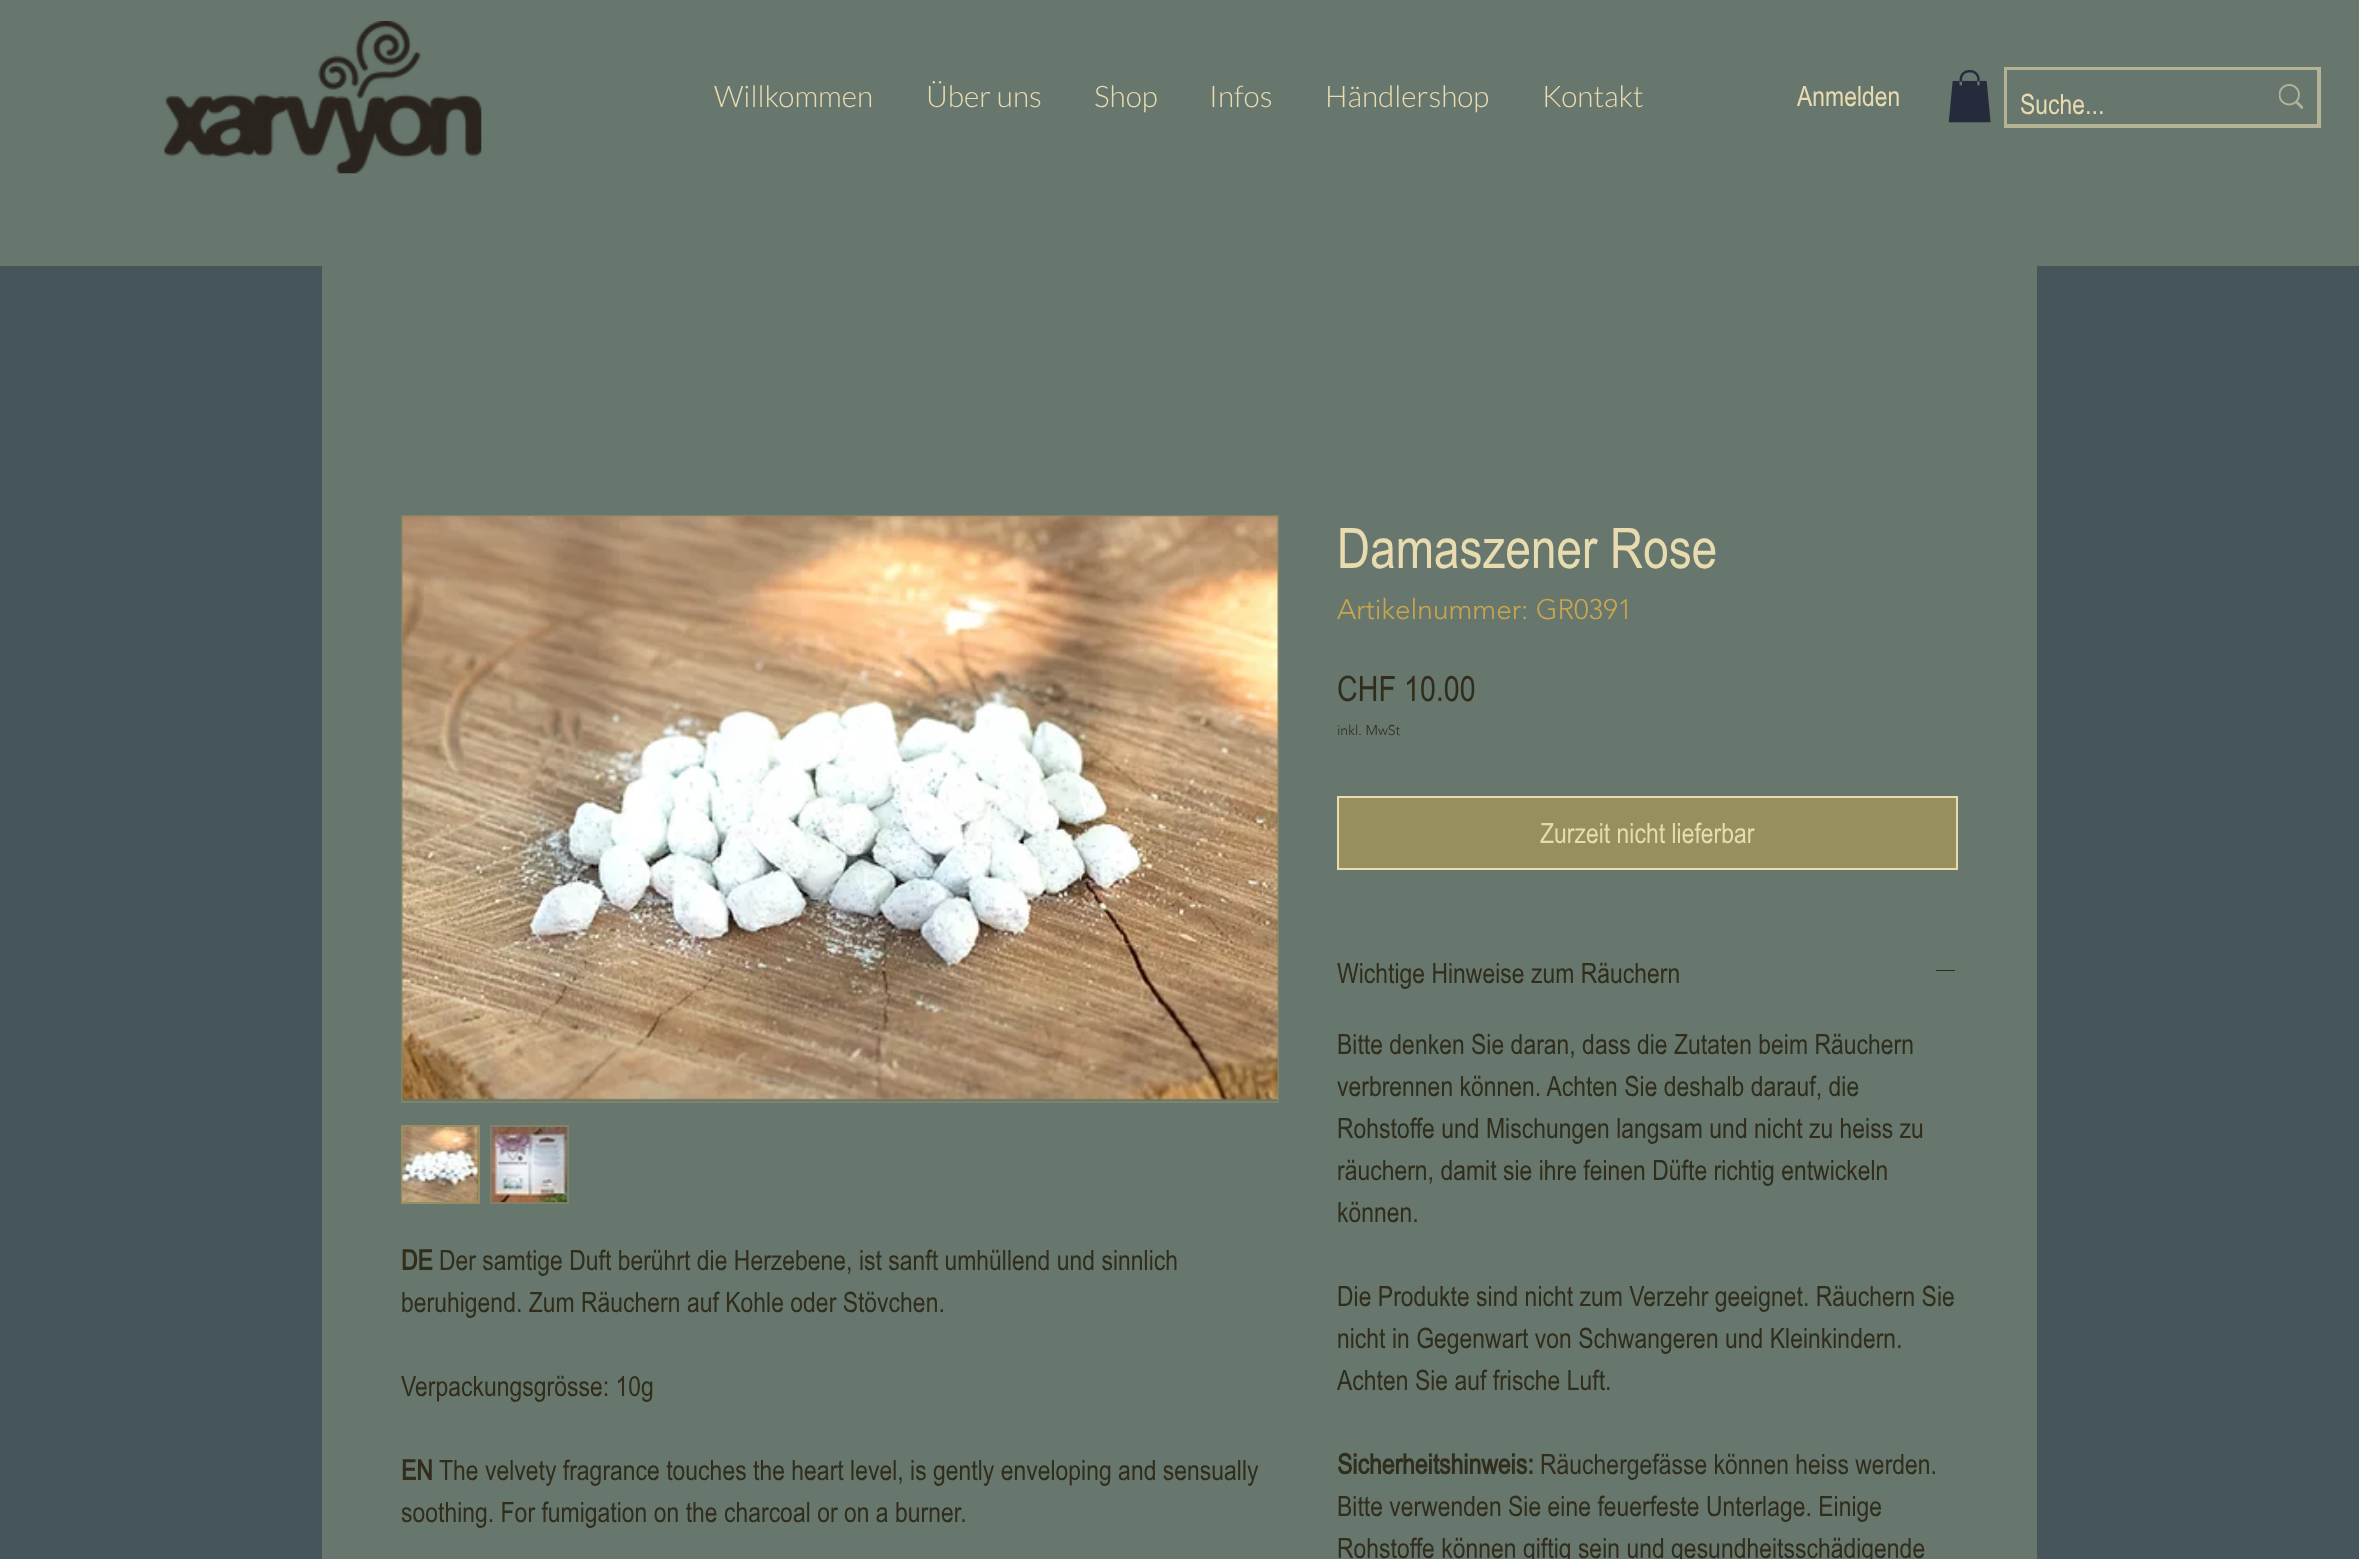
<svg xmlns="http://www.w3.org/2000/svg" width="2359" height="1559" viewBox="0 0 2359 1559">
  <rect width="100%" height="100%" fill="rgb(70,85,89)"/>
  <rect x="0" y="0" width="2359" height="266" fill="rgb(103,119,110)"/>
  <image x="164" y="21" width="318" height="153" href="pic1.png"/>
  <g font-family="Lato" font-size="29.75" font-weight="300" fill="rgb(232,219,176)">
    <text x="714" y="107">Willkommen</text>
    <text x="926" y="107">Über uns</text>
    <text x="1094" y="107">Shop</text>
    <text x="1209" y="107">Infos</text>
    <text x="1325" y="107">Händlershop</text>
    <text x="1542" y="107">Kontakt</text>
  </g>
  <text x="1797" y="106" font-family="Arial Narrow" font-size="28" fill="rgb(232,219,176)">Anmelden</text>
  <image x="1948" y="70" width="43" height="53" href="pic2.png"/>
  <rect x="2006" y="69" width="313" height="57" fill="none" stroke="rgb(180,179,150)" stroke-width="4"/>
  <rect x="2007" y="70" width="310" height="54" fill="rgb(103,119,110)"/>
  <text x="2020" y="114" font-family="Arial Narrow" font-size="28" fill="rgb(232,219,176)">Suche...</text>
  <image x="2279" y="84" width="24" height="26" href="pic3.png"/>
  <rect x="322" y="266" width="1715" height="1293" fill="rgb(103,119,110)"/>
  <rect x="402" y="516" width="876" height="586" fill="none" stroke="rgb(128,131,102)" stroke-width="2"/>
  <image x="402" y="516" width="876" height="584" href="pic4.png"/>
  <rect x="402" y="1126" width="77" height="77" fill="none" stroke="rgb(152,143,94)" stroke-width="2"/>
  <image x="402" y="1127" width="77" height="75" href="pic5.png"/>
  <rect x="491" y="1126" width="77" height="77" fill="none" stroke="rgb(128,131,102)" stroke-width="2"/>
  <image x="491" y="1127" width="77" height="76" href="pic6.png"/>
  <text x="401" y="1270" font-family="Arial Narrow" font-size="28" font-weight="bold" fill="rgb(48,45,27)">DE</text>
  <g font-family="Arial Narrow" font-size="28" fill="rgb(48,45,27)">
    <text x="439" y="1270">Der samtige Duft berührt die Herzebene, ist sanft umhüllend und sinnlich</text>
    <text x="401" y="1312">beruhigend. Zum Räuchern auf Kohle oder Stövchen.</text>
    <text x="401" y="1396">Verpackungsgrösse: 10g</text>
  </g>
  <text x="401" y="1480" font-family="Arial Narrow" font-size="28" font-weight="bold" fill="rgb(48,45,27)">EN</text>
  <g font-family="Arial Narrow" font-size="28" fill="rgb(48,45,27)">
    <text x="439" y="1480">The velvety fragrance touches the heart level, is gently enveloping and sensually</text>
    <text x="401" y="1522">soothing. For fumigation on the charcoal or on a burner.</text>
  </g>
  <text x="1337" y="568" font-family="Arial Narrow" font-size="56" fill="rgb(232,219,176)">Damaszener Rose</text>
  <text x="1337" y="619" font-family="'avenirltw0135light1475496'" font-size="28" font-weight="300" fill="rgb(201,166,77)">Artikelnummer: GR0391</text>
  <text x="1337" y="701" font-family="Arial Narrow" font-size="35" fill="rgb(48,45,27)">CHF 10.00</text>
  <text x="1337" y="735" font-family="'avenirltw0135light1475496'" font-size="14" font-weight="300" fill="rgb(48,45,27)">inkl. MwSt</text>
  <rect x="1338" y="797" width="619" height="72" fill="rgb(152,143,94)" stroke="rgb(232,219,176)" stroke-width="2"/>
  <text x="1540" y="843" font-family="Arial Narrow" font-size="28" fill="rgb(232,219,176)">Zurzeit nicht lieferbar</text>
  <text x="1337" y="983" font-family="Arial Narrow" font-size="28" fill="rgb(48,45,27)">Wichtige Hinweise zum Räuchern</text>
  <rect x="1936" y="970" width="19" height="1" fill="rgb(48,45,27)"/>
  <g font-family="Arial Narrow" font-size="28" fill="rgb(48,45,27)">
    <text>
      <tspan x="1337" y="1054">Bitte denken Sie daran, dass die Zutaten beim Räuchern</tspan>
      <tspan x="1337" y="1096">verbrennen können. Achten Sie deshalb darauf, die</tspan>
      <tspan x="1337" y="1138">Rohstoffe und Mischungen langsam und nicht zu heiss zu</tspan>
      <tspan x="1337" y="1180">räuchern, damit sie ihre feinen Düfte richtig entwickeln</tspan>
      <tspan x="1337" y="1222">können.</tspan>
    </text>
    <text>
      <tspan x="1337" y="1306">Die Produkte sind nicht zum Verzehr geeignet. Räuchern Sie</tspan>
      <tspan x="1337" y="1348">nicht in Gegenwart von Schwangeren und Kleinkindern.</tspan>
      <tspan x="1337" y="1390">Achten Sie auf frische Luft.</tspan>
    </text>
  </g>
  <text x="1337" y="1474" font-family="Arial Narrow" font-size="28" font-weight="bold" fill="rgb(48,45,27)">Sicherheitshinweis:</text>
  <g font-family="Arial Narrow" font-size="28" fill="rgb(48,45,27)">
    <text x="1540" y="1474">Räuchergefässe können heiss werden.</text>
    <text>
      <tspan x="1337" y="1516">Bitte verwenden Sie eine feuerfeste Unterlage. Einige</tspan>
      <tspan x="1337" y="1558">Rohstoffe können giftig sein und gesundheitsschädigende</tspan>
    </text>
  </g>
</svg>
